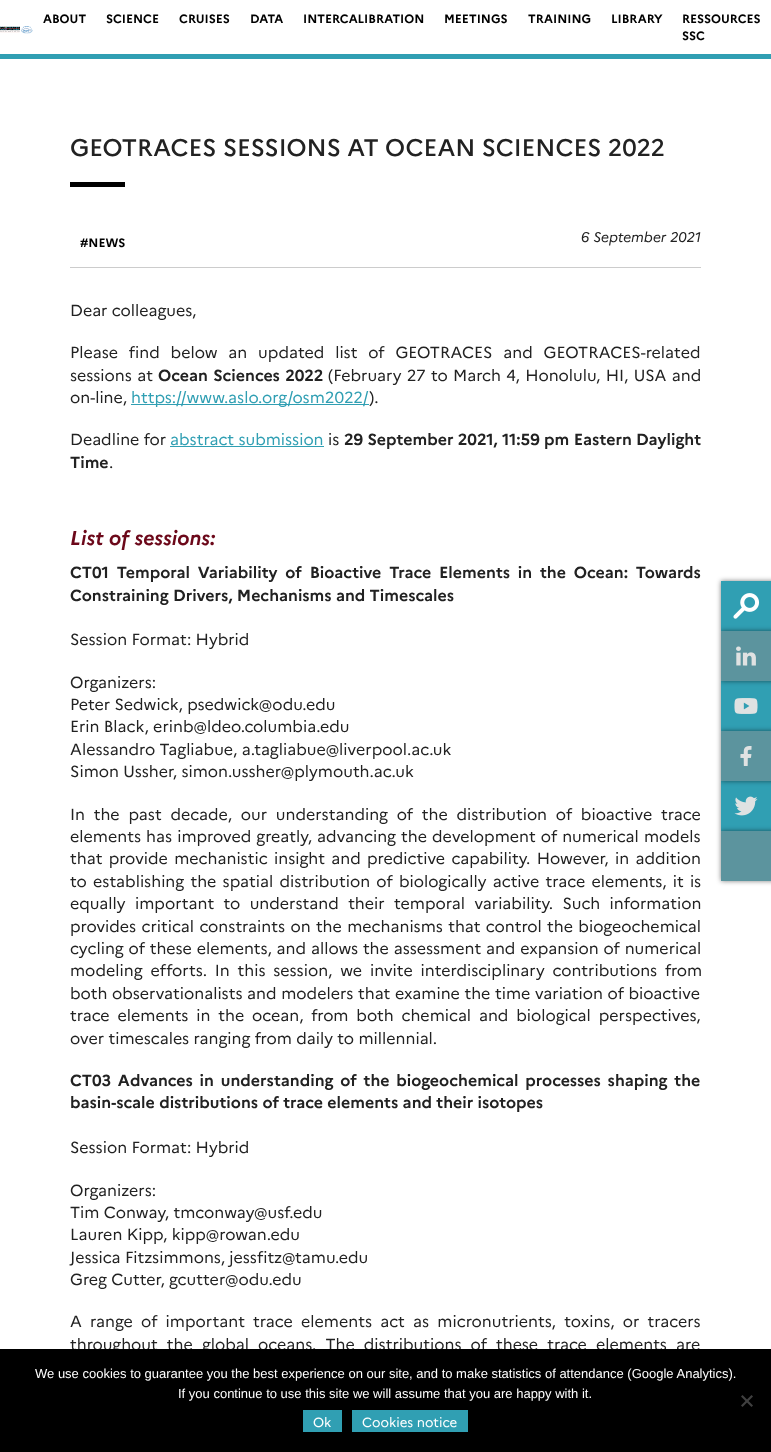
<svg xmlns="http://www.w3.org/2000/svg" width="771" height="1452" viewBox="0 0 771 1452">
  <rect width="100%" height="100%" fill="rgb(255,255,255)"/>
  <rect x="0" y="54" width="771" height="5" fill="rgb(48,159,179)"/>
  <image x="0" y="26" width="33" height="8" href="pic1.png"/>
  <g font-family="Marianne" font-size="12" font-weight="bold" fill="rgb(0,0,0)">
    <text x="43" y="23">ABOUT</text>
    <text x="106" y="23">SCIENCE</text>
    <text x="179" y="23">CRUISES</text>
    <text x="250" y="23">DATA</text>
    <text x="303" y="23">INTERCALIBRATION</text>
    <text x="444" y="23">MEETINGS</text>
    <text x="528" y="23">TRAINING</text>
    <text x="611" y="23">LIBRARY</text>
    <text>
      <tspan x="682" y="23">RESSOURCES</tspan>
      <tspan x="682" y="40">SSC</tspan>
    </text>
  </g>
  <text x="70" y="156" font-family="Marianne" font-size="24" font-weight="500" fill="rgb(34,34,34)">GEOTRACES SESSIONS AT OCEAN SCIENCES 2022</text>
  <rect x="70" y="182" width="55" height="5" fill="rgb(0,0,0)"/>
  <rect x="70" y="267" width="631" height="1" fill="rgb(204,204,204)"/>
  <text x="80" y="247" font-family="Marianne" font-size="12" font-weight="bold" fill="rgb(0,0,0)">#NEWS</text>
  <text x="581" y="242" font-family="Marianne" font-size="14" font-style="italic" fill="rgb(34,34,34)">6 September 2021</text>
  <g font-family="Marianne" font-size="16" fill="rgb(34,34,34)">
    <text x="70" y="316">Dear colleagues,</text>
    <text>
      <tspan x="70" y="358" word-spacing="6.5">Please find below an updated list of GEOTRACES and GEOTRACES-related</tspan>
      <tspan x="70" y="381" word-spacing="1">sessions at</tspan>
    </text>
  </g>
  <text x="158" y="381" word-spacing="1" font-family="Marianne" font-size="16" font-weight="bold" fill="rgb(34,34,34)">Ocean Sciences 2022</text>
  <g font-family="Marianne" font-size="16" fill="rgb(34,34,34)">
    <text x="328" y="381" word-spacing="1">(February 27 to March 4, Honolulu, HI, USA and</text>
    <text x="70" y="403">on-line,</text>
  </g>
  <rect x="131" y="404" width="238" height="1" fill="rgb(48,159,179)"/>
  <text x="131" y="403" font-family="Marianne" font-size="16" fill="rgb(48,159,179)">https://www.aslo.org/osm2022/</text>
  <g font-family="Marianne" font-size="16" fill="rgb(34,34,34)">
    <text x="369" y="403">).</text>
    <text x="70" y="445">Deadline for</text>
  </g>
  <text x="170" y="445" font-family="Marianne" font-size="16" fill="rgb(48,159,179)">abstract submission</text>
  <rect x="170" y="446" width="154" height="1" fill="rgb(48,159,179)"/>
  <text x="328" y="445" font-family="Marianne" font-size="16" fill="rgb(34,34,34)">is</text>
  <g font-family="Marianne" font-size="16" font-weight="bold" fill="rgb(34,34,34)">
    <text x="344" y="445">29 September 2021, 11:59 pm Eastern Daylight</text>
    <text x="70" y="468">Time</text>
  </g>
  <text x="109" y="468" font-family="Marianne" font-size="16" fill="rgb(34,34,34)">.</text>
  <text x="70" y="545" font-family="Marianne" font-size="20" font-weight="bold" font-style="italic" fill="rgb(108,8,26)">List of sessions:</text>
  <g font-family="Marianne" font-size="16" font-weight="bold" fill="rgb(34,34,34)">
    <text>
      <tspan x="70" y="578" word-spacing="3.5">CT01 Temporal Variability of Bioactive Trace Elements in the Ocean: Towards</tspan>
      <tspan x="70" y="601">Constraining Drivers, Mechanisms and Timescales</tspan>
    </text>
  </g>
  <g font-family="Marianne" font-size="16" fill="rgb(34,34,34)">
    <text x="70" y="645">Session Format: Hybrid</text>
    <text>
      <tspan x="70" y="688">Organizers:</tspan>
      <tspan x="70" y="710">Peter Sedwick, psedwick@odu.edu</tspan>
      <tspan x="70" y="732">Erin Black, erinb@ldeo.columbia.edu</tspan>
      <tspan x="70" y="755">Alessandro Tagliabue, a.tagliabue@liverpool.ac.uk</tspan>
      <tspan x="70" y="777">Simon Ussher, simon.ussher@plymouth.ac.uk</tspan>
    </text>
    <text>
      <tspan x="70" y="820" word-spacing="4.4">In the past decade, our understanding of the distribution of bioactive trace</tspan>
      <tspan x="70" y="842" word-spacing="0.75">elements has improved greatly, advancing the development of numerical models</tspan>
      <tspan x="70" y="864" word-spacing="2">that provide mechanistic insight and predictive capability. However, in addition</tspan>
      <tspan x="70" y="887" word-spacing="1.9">to establishing the spatial distribution of biologically active trace elements, it is</tspan>
      <tspan x="70" y="909" word-spacing="5">equally important to understand their temporal variability. Such information</tspan>
      <tspan x="70" y="932" word-spacing="1">provides critical constraints on the mechanisms that control the biogeochemical</tspan>
      <tspan x="70" y="954" word-spacing="0.5">cycling of these elements, and allows the assessment and expansion of numerical</tspan>
      <tspan x="70" y="976" word-spacing="3.5">modeling efforts. In this session, we invite interdisciplinary contributions from</tspan>
      <tspan x="70" y="999" word-spacing="0.25">both observationalists and modelers that examine the time variation of bioactive</tspan>
      <tspan x="70" y="1021" word-spacing="3.5">trace elements in the ocean, from both chemical and biological perspectives,</tspan>
      <tspan x="70" y="1044">over timescales ranging from daily to millennial.</tspan>
    </text>
  </g>
  <g font-family="Marianne" font-size="16" font-weight="bold" fill="rgb(34,34,34)">
    <text>
      <tspan x="70" y="1086" word-spacing="2.5">CT03 Advances in understanding of the biogeochemical processes shaping the</tspan>
      <tspan x="70" y="1108">basin-scale distributions of trace elements and their isotopes</tspan>
    </text>
  </g>
  <g font-family="Marianne" font-size="16" fill="rgb(34,34,34)">
    <text x="70" y="1153">Session Format: Hybrid</text>
    <text>
      <tspan x="70" y="1196">Organizers:</tspan>
      <tspan x="70" y="1218">Tim Conway, tmconway@usf.edu</tspan>
      <tspan x="70" y="1240">Lauren Kipp, kipp@rowan.edu</tspan>
      <tspan x="70" y="1263">Jessica Fitzsimmons, jessfitz@tamu.edu</tspan>
      <tspan x="70" y="1285">Greg Cutter, gcutter@odu.edu</tspan>
    </text>
    <text>
      <tspan x="70" y="1327" word-spacing="3.9">A range of important trace elements act as micronutrients, toxins, or tracers</tspan>
      <tspan x="70" y="1350" word-spacing="4.75">throughout the global oceans. The distributions of these trace elements are</tspan>
    </text>
  </g>
  <rect x="721" y="581" width="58" height="50" fill="rgba(0,0,0,0.5)" filter="blur(2.5px)"/>
  <rect x="721" y="581" width="50" height="50" fill="rgb(48,159,179)"/>
  <image x="733" y="593" width="27" height="26" href="pic2.png"/>
  <rect x="721" y="681" width="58" height="50" fill="rgba(0,0,0,0.5)" filter="blur(2.5px)"/>
  <rect x="721" y="681" width="50" height="50" fill="rgb(48,159,179)"/>
  <rect x="721" y="631" width="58" height="50" fill="rgba(0,0,0,0.5)" filter="blur(2.5px)"/>
  <rect x="721" y="631" width="50" height="50" fill="rgb(92,148,158)"/>
  <image x="736" y="646" width="20" height="20" href="pic3.png"/>
  <image x="734" y="698" width="24" height="16" href="pic4.png"/>
  <rect x="721" y="781" width="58" height="50" fill="rgba(0,0,0,0.5)" filter="blur(2.5px)"/>
  <rect x="721" y="781" width="50" height="50" fill="rgb(48,159,179)"/>
  <rect x="721" y="731" width="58" height="50" fill="rgba(0,0,0,0.5)" filter="blur(2.5px)"/>
  <rect x="721" y="731" width="50" height="50" fill="rgb(92,148,158)"/>
  <image x="740" y="746" width="12" height="20" href="pic5.png"/>
  <image x="734" y="796" width="24" height="20" href="pic6.png"/>
  <rect x="721" y="831" width="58" height="50" fill="rgba(0,0,0,0.5)" filter="blur(2.5px)"/>
  <rect x="721" y="831" width="50" height="50" fill="rgb(92,148,158)"/>
  <rect x="0" y="1349" width="771" height="103" fill="rgb(0,0,0)"/>
  <g font-family="Liberation Sans" font-size="13" fill="rgb(255,255,255)">
    <text x="35" y="1378">We use cookies to guarantee you the best experience on our site, and to make statistics of attendance (Google Analytics).</text>
    <text x="178" y="1398">If you continue to use this site we will assume that you are happy with it.</text>
  </g>
  <path d="M751.5 1395L753 1396.5L742.5 1407L741 1405.5Z" fill="rgb(64,64,64)"/>
  <path d="M741 1396.5L742.5 1395L753 1405.5L751.5 1407Z" fill="rgb(64,64,64)"/>
  <rect x="303" y="1410" width="39" height="22" fill="rgb(48,159,179)"/>
  <text x="313" y="1427" font-family="Marianne" font-size="13.25" fill="rgb(255,255,255)">Ok</text>
  <rect x="352" y="1410" width="116" height="22" fill="rgb(48,159,179)"/>
  <text x="362" y="1427" font-family="Marianne" font-size="13.25" fill="rgb(255,255,255)">Cookies notice</text>
</svg>
